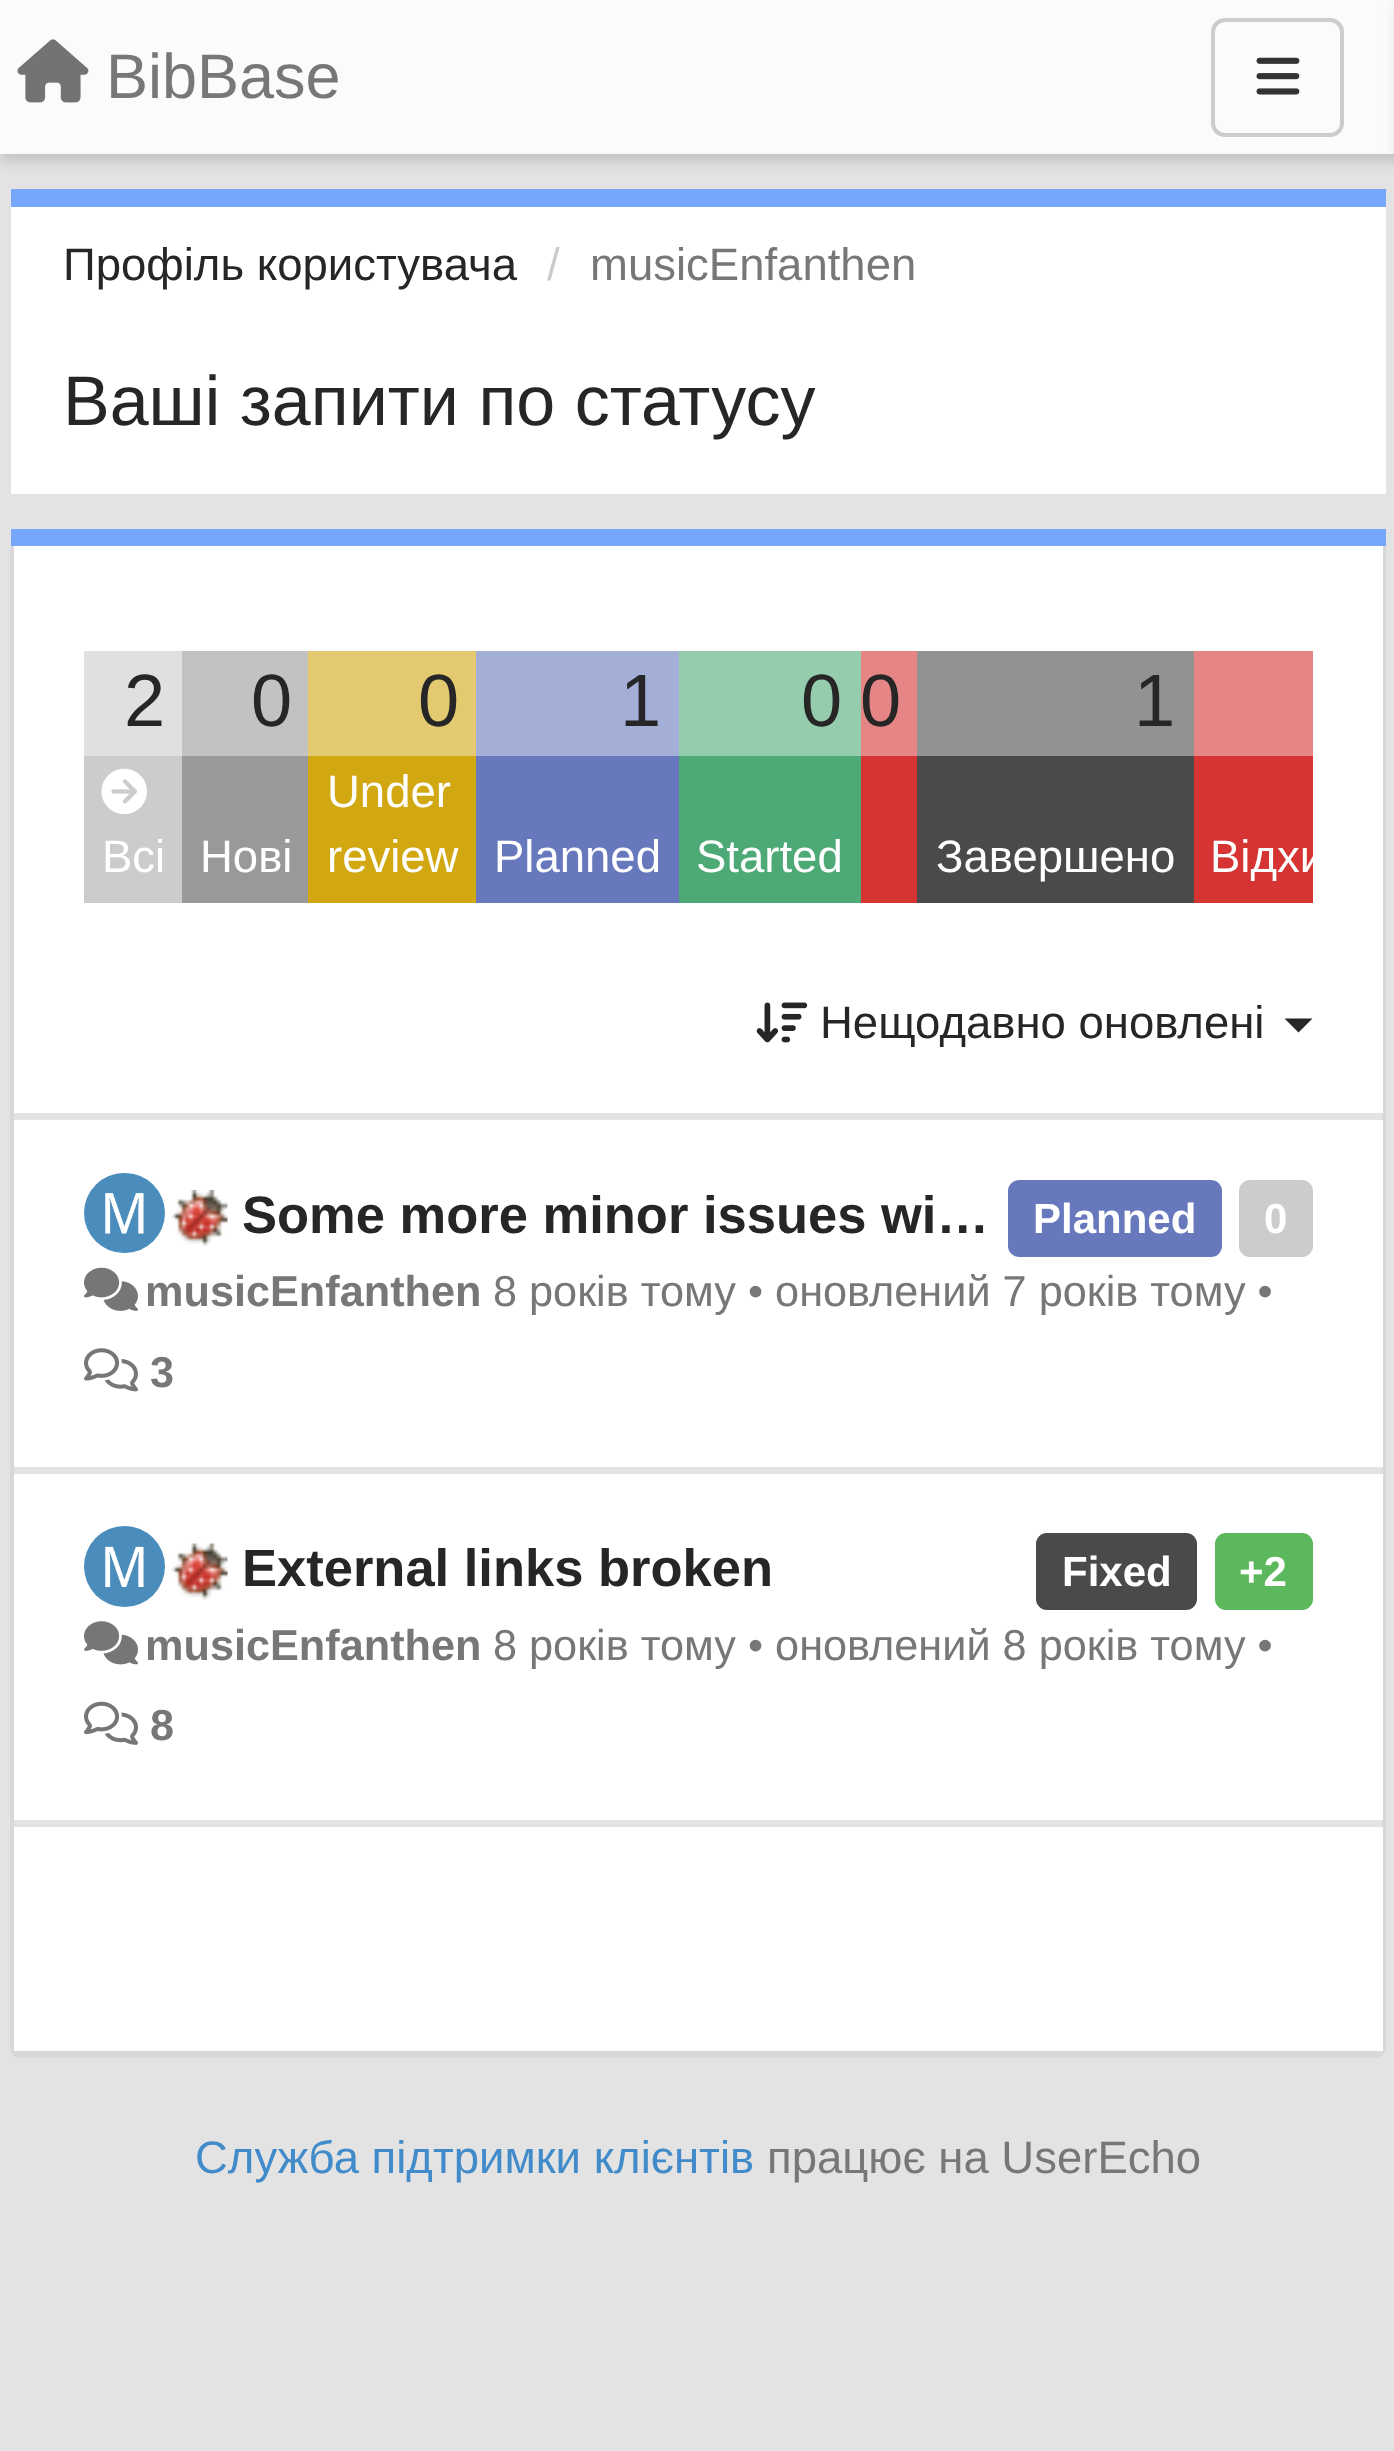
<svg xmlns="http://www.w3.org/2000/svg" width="1394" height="2451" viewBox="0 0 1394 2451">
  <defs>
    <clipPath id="clip1"><rect x="84" y="616" width="1229" height="322"/></clipPath>
  </defs>
  <rect width="100%" height="100%" fill="rgb(227,227,227)"/>
  <rect x="0" y="7" width="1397" height="154" fill="rgba(0,0,0,0.15)" filter="blur(7px)"/>
  <rect x="0" y="0" width="1394" height="154" fill="rgb(251,251,251)"/>
  <image x="17" y="39" width="72" height="64" href="pic1.png"/>
  <text x="106" y="98" font-family="Liberation Sans" font-size="63" fill="rgb(119,119,119)">BibBase</text>
  <rect x="1213" y="20" width="129" height="115" rx="12" fill="none" stroke="rgb(204,204,204)" stroke-width="4"/>
  <image x="1256" y="57" width="44" height="38" href="pic2.png"/>
  <rect x="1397" y="7" width="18" height="154" fill="rgba(0,0,0,0.15)" filter="blur(7px)"/>
  <rect x="11" y="207" width="1375" height="287" fill="rgb(255,255,255)"/>
  <rect x="11" y="189" width="1375" height="18" fill="rgb(118,167,250)"/>
  <text x="63" y="280" font-family="Liberation Sans" font-size="45.5" fill="rgb(38,38,38)">Профіль користувача</text>
  <text x="547" y="280" font-family="Liberation Sans" font-size="45.5" fill="rgb(204,204,204)">/</text>
  <text x="590" y="280" font-family="Liberation Sans" font-size="45.5" fill="rgb(119,119,119)">musicEnfanthen</text>
  <text x="63" y="425" font-family="Liberation Sans" font-size="70" fill="rgb(38,38,38)">Ваші запити по статусу</text>
  <rect x="11" y="529" width="1375" height="17" fill="rgb(118,167,250)"/>
  <path d="M10 546H1386V2048C1386 2053 1381 2058 1376 2058H21C15 2058 10 2053 10 2048ZM14 546H1382V2048C1382 2049 1379 2051 1376 2051H21C17 2051 14 2049 14 2048Z" fill="rgb(216,216,216)" fill-rule="evenodd"/>
  <rect x="14" y="546" width="1369" height="567" fill="rgb(255,255,255)"/>
  <rect x="84" y="651" width="98" height="105" fill="rgb(224,224,224)"/>
  <text x="124" y="726" font-family="Liberation Sans" font-size="74" fill="rgb(38,38,38)">2</text>
  <rect x="182" y="651" width="126" height="105" fill="rgb(194,194,194)"/>
  <text x="251" y="726" font-family="Liberation Sans" font-size="74" fill="rgb(38,38,38)">0</text>
  <rect x="308" y="651" width="168" height="105" fill="rgb(227,202,113)"/>
  <text x="418" y="726" font-family="Liberation Sans" font-size="74" fill="rgb(38,38,38)">0</text>
  <rect x="476" y="651" width="203" height="105" fill="rgb(164,175,215)"/>
  <text x="620" y="726" font-family="Liberation Sans" font-size="74" fill="rgb(38,38,38)">1</text>
  <rect x="679" y="651" width="182" height="105" fill="rgb(148,204,173)"/>
  <text x="801" y="726" font-family="Liberation Sans" font-size="74" fill="rgb(38,38,38)">0</text>
  <rect x="861" y="651" width="56" height="105" fill="rgb(230,133,133)"/>
  <text x="860" y="726" font-family="Liberation Sans" font-size="74" fill="rgb(38,38,38)">0</text>
  <rect x="917" y="651" width="277" height="105" fill="rgb(146,146,146)"/>
  <text x="1134" y="726" font-family="Liberation Sans" font-size="74" fill="rgb(38,38,38)">1</text>
  <rect x="1194" y="651" width="119" height="105" fill="rgb(230,133,133)"/>
  <rect x="84" y="756" width="98" height="147" fill="rgb(204,204,204)"/>
  <image x="101" y="768" width="46" height="47" href="pic3.png"/>
  <text x="102" y="872" font-family="Liberation Sans" font-size="45.5" fill="rgb(255,255,255)">Всі</text>
  <rect x="182" y="756" width="126" height="147" fill="rgb(153,153,153)"/>
  <text x="200" y="872" font-family="Liberation Sans" font-size="45.5" fill="rgb(255,255,255)">Нові</text>
  <rect x="308" y="756" width="168" height="147" fill="rgb(209,167,18)"/>
  <g font-family="Liberation Sans" font-size="45.5" fill="rgb(255,255,255)">
    <text>
      <tspan x="327" y="807">Under</tspan>
      <tspan x="327" y="872">review</tspan>
    </text>
  </g>
  <rect x="476" y="756" width="203" height="147" fill="rgb(103,121,188)"/>
  <text x="494" y="872" font-family="Liberation Sans" font-size="45.5" fill="rgb(255,255,255)">Planned</text>
  <rect x="679" y="756" width="182" height="147" fill="rgb(77,170,119)"/>
  <text x="696" y="872" font-family="Liberation Sans" font-size="45.5" fill="rgb(255,255,255)">Started</text>
  <rect x="861" y="756" width="56" height="147" fill="rgb(214,51,51)"/>
  <rect x="917" y="756" width="277" height="147" fill="rgb(74,74,74)"/>
  <text x="936" y="872" font-family="Liberation Sans" font-size="45.5" fill="rgb(255,255,255)">Завершено</text>
  <rect x="1194" y="756" width="119" height="147" fill="rgb(214,51,51)"/>
  <g clip-path="url(#clip1)">
    <text x="1210" y="872" font-family="Liberation Sans" font-size="45.5" fill="rgb(255,255,255)">Відхи</text>
  </g>
  <image x="756" y="1002" width="52" height="41" href="pic4.png"/>
  <text x="820" y="1038" font-family="Liberation Sans" font-size="45.5" fill="rgb(38,38,38)">Нещодавно оновлені</text>
  <path d="M1284.5 1018.5H1312.5L1298.5 1032.5Z" fill="rgb(38,38,38)"/>
  <rect x="14" y="1120" width="1369" height="347" fill="rgb(255,255,255)"/>
  <rect x="84" y="1173" width="81" height="80" rx="40" fill="rgb(74,141,188)"/>
  <image x="105" y="1193" width="39" height="41" href="pic5.png"/>
  <image x="171" y="1190" width="57" height="56" href="pic6.png"/>
  <text x="242" y="1233" font-family="Liberation Sans" font-size="52.5" font-weight="bold" fill="rgb(38,38,38)">Some more minor issues wi…</text>
  <rect x="1008" y="1180" width="214" height="77" rx="11" fill="rgb(103,121,188)"/>
  <text x="1033" y="1233" font-family="Liberation Sans" font-size="42" font-weight="bold" fill="rgb(255,255,255)">Planned</text>
  <rect x="1239" y="1180" width="74" height="77" rx="11" fill="rgb(204,204,204)"/>
  <text x="1264" y="1233" font-family="Liberation Sans" font-size="42" font-weight="bold" fill="rgb(255,255,255)">0</text>
  <image x="84" y="1267" width="54" height="44" href="pic7.png"/>
  <text x="145" y="1306" font-family="Liberation Sans" font-size="43.25" font-weight="bold" fill="rgb(119,119,119)">musicEnfanthen</text>
  <text x="493" y="1306" font-family="Liberation Sans" font-size="43.25" fill="rgb(119,119,119)">8 років тому • оновлений 7 років тому •</text>
  <image x="84" y="1348" width="54" height="44" href="pic8.png"/>
  <text x="150" y="1387" font-family="Liberation Sans" font-size="43.25" font-weight="bold" fill="rgb(119,119,119)">3</text>
  <rect x="14" y="1474" width="1369" height="346" fill="rgb(255,255,255)"/>
  <circle cx="124.5" cy="1566.5" r="40.5" fill="rgb(74,141,188)"/>
  <image x="105" y="1546" width="39" height="41" href="pic9.png"/>
  <image x="171" y="1543" width="57" height="57" href="pic10.png"/>
  <text x="242" y="1586" font-family="Liberation Sans" font-size="52.5" font-weight="bold" fill="rgb(38,38,38)">External links broken</text>
  <rect x="1036" y="1533" width="161" height="77" rx="11" fill="rgb(74,74,74)"/>
  <text x="1062" y="1586" font-family="Liberation Sans" font-size="42" font-weight="bold" fill="rgb(255,255,255)">Fixed</text>
  <rect x="1215" y="1533" width="98" height="77" rx="11" fill="rgb(92,184,92)"/>
  <text x="1239" y="1586" font-family="Liberation Sans" font-size="42" font-weight="bold" fill="rgb(255,255,255)">+2</text>
  <image x="84" y="1621" width="54" height="44" href="pic11.png"/>
  <text x="145" y="1660" font-family="Liberation Sans" font-size="43.25" font-weight="bold" fill="rgb(119,119,119)">musicEnfanthen</text>
  <text x="493" y="1660" font-family="Liberation Sans" font-size="43.25" fill="rgb(119,119,119)">8 років тому • оновлений 8 років тому •</text>
  <image x="84" y="1701" width="54" height="44" href="pic12.png"/>
  <text x="150" y="1740" font-family="Liberation Sans" font-size="43.25" font-weight="bold" fill="rgb(119,119,119)">8</text>
  <rect x="14" y="1827" width="1369" height="224" fill="rgb(255,255,255)"/>
  <text x="195" y="2173" font-family="Liberation Sans" font-size="45.5" fill="rgb(66,139,202)">Служба підтримки клієнтів</text>
  <text x="767" y="2173" font-family="Liberation Sans" font-size="45.5" fill="rgb(119,119,119)">працює на UserEcho</text>
</svg>
